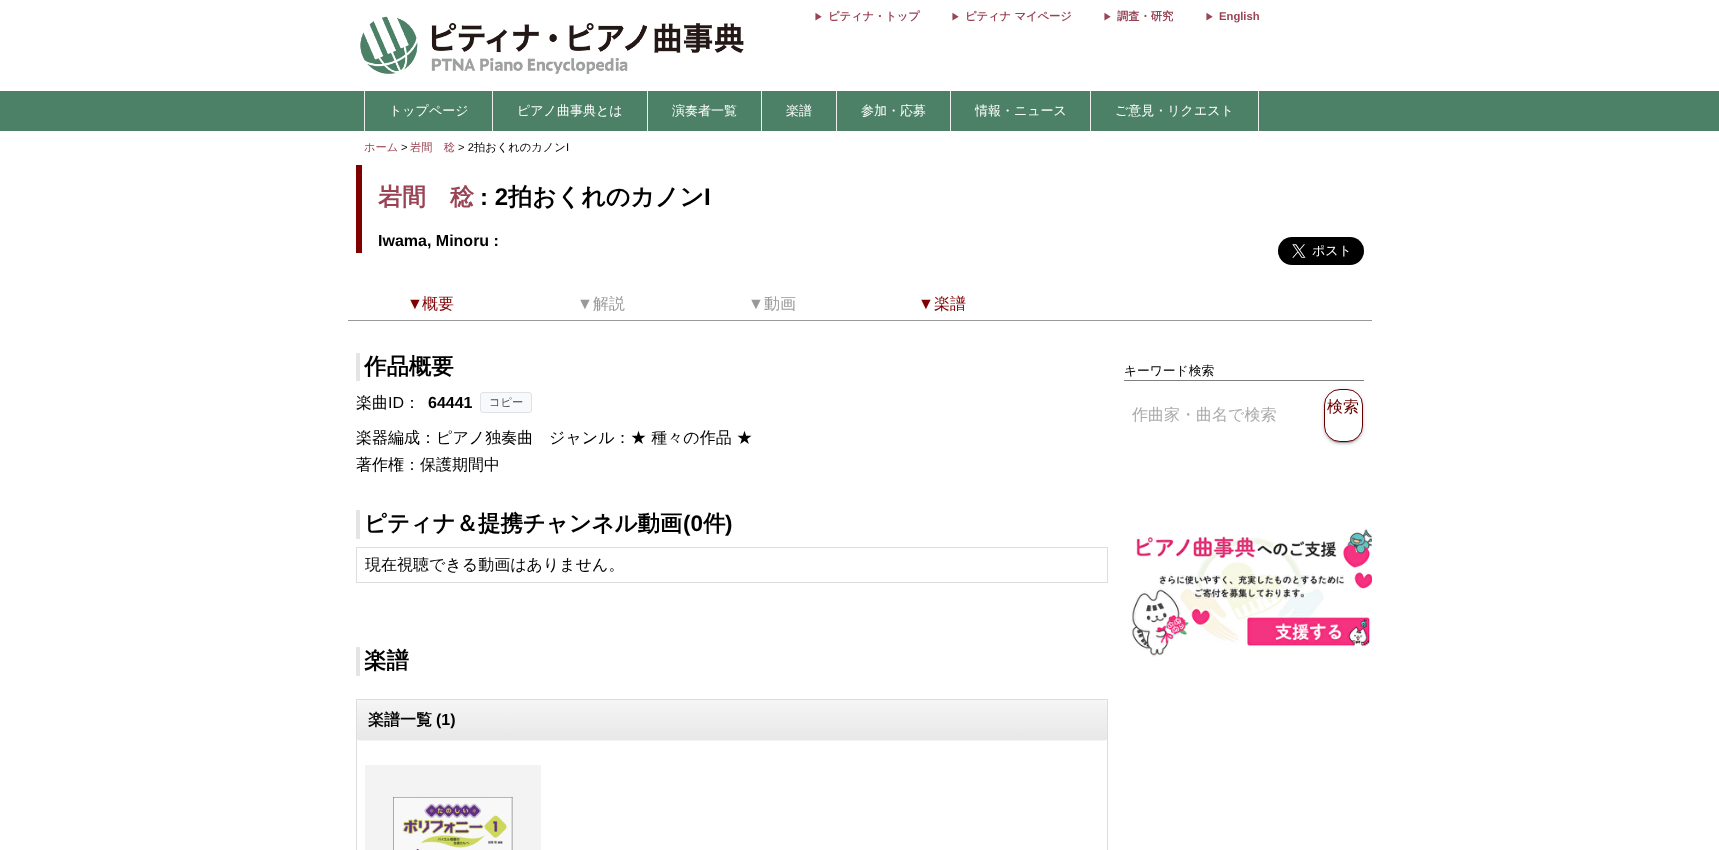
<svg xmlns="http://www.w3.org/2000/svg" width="1719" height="850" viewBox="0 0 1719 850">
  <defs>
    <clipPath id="clip1"><rect x="357" y="700" width="750" height="41" rx="3"/></clipPath>
    <linearGradient id="g1" gradientUnits="userSpaceOnUse" x1="732" y1="700" x2="732" y2="740"><stop offset="0" stop-color="rgb(245,245,245)"/><stop offset="1" stop-color="rgb(232,232,232)"/></linearGradient>
    <linearGradient id="g2" gradientUnits="userSpaceOnUse" x1="732" y1="740" x2="732" y2="780"><stop offset="0" stop-color="rgb(245,245,245)"/><stop offset="1" stop-color="rgb(232,232,232)"/></linearGradient>
  </defs>
  <rect width="100%" height="100%" fill="rgb(255,255,255)"/>
  <image x="360" y="16" width="384" height="58" href="pic1.png"/>
  <text x="814" y="20" font-family="WenQuanYi Zen Hei" font-size="9" font-weight="bold" fill="rgb(153,68,85)">▶</text>
  <text x="828" y="20" font-family="WenQuanYi Zen Hei" font-size="11.25" font-weight="bold" fill="rgb(153,68,85)">ピティナ・トップ</text>
  <text x="951" y="20" font-family="WenQuanYi Zen Hei" font-size="9" font-weight="bold" fill="rgb(153,68,85)">▶</text>
  <text x="965" y="20" font-family="WenQuanYi Zen Hei" font-size="11.25" font-weight="bold" fill="rgb(153,68,85)">ピティナ マイページ</text>
  <text x="1103" y="20" font-family="WenQuanYi Zen Hei" font-size="9" font-weight="bold" fill="rgb(153,68,85)">▶</text>
  <text x="1117" y="20" font-family="WenQuanYi Zen Hei" font-size="11.25" font-weight="bold" fill="rgb(153,68,85)">調査・研究</text>
  <text x="1205" y="20" font-family="WenQuanYi Zen Hei" font-size="9" font-weight="bold" fill="rgb(153,68,85)">▶</text>
  <text x="1219" y="20" font-family="Liberation Sans" font-size="11.25" font-weight="bold" fill="rgb(153,68,85)">English</text>
  <rect x="0" y="91" width="1719" height="40" fill="rgb(76,129,103)"/>
  <rect x="364" y="91" width="1" height="40" fill="rgb(238,238,238)"/>
  <rect x="492" y="91" width="1" height="40" fill="rgb(238,238,238)"/>
  <text x="389" y="115" font-family="WenQuanYi Zen Hei" font-size="13" font-weight="500" fill="rgb(255,255,255)">トップページ</text>
  <rect x="647" y="91" width="1" height="40" fill="rgb(238,238,238)"/>
  <text x="517" y="115" font-family="WenQuanYi Zen Hei" font-size="13" font-weight="500" fill="rgb(255,255,255)">ピアノ曲事典とは</text>
  <rect x="761" y="91" width="1" height="40" fill="rgb(238,238,238)"/>
  <text x="672" y="115" font-family="WenQuanYi Zen Hei" font-size="13" font-weight="500" fill="rgb(255,255,255)">演奏者一覧</text>
  <rect x="836" y="91" width="1" height="40" fill="rgb(238,238,238)"/>
  <text x="786" y="115" font-family="WenQuanYi Zen Hei" font-size="13" font-weight="500" fill="rgb(255,255,255)">楽譜</text>
  <rect x="950" y="91" width="1" height="40" fill="rgb(238,238,238)"/>
  <text x="861" y="115" font-family="WenQuanYi Zen Hei" font-size="13" font-weight="500" fill="rgb(255,255,255)">参加・応募</text>
  <rect x="1090" y="91" width="1" height="40" fill="rgb(238,238,238)"/>
  <text x="975" y="115" font-family="WenQuanYi Zen Hei" font-size="13" font-weight="500" fill="rgb(255,255,255)">情報・ニュース</text>
  <rect x="1258" y="91" width="1" height="40" fill="rgb(238,238,238)"/>
  <text x="1115" y="115" font-family="WenQuanYi Zen Hei" font-size="13" font-weight="500" fill="rgb(255,255,255)">ご意見・リクエスト</text>
  <text x="364" y="151" font-family="WenQuanYi Zen Hei" font-size="11.25" font-weight="500" fill="rgb(153,68,85)">ホーム</text>
  <text x="401" y="151" font-family="Liberation Sans" font-size="11.25" fill="rgb(0,0,0)">&gt;</text>
  <text x="410" y="151" font-family="WenQuanYi Zen Hei" font-size="11.25" font-weight="500" fill="rgb(153,68,85)">岩間　稔</text>
  <text x="458" y="151" font-family="Liberation Sans" font-size="11.25" fill="rgb(0,0,0)">&gt; 2</text>
  <text x="474" y="151" font-family="WenQuanYi Zen Hei" font-size="11.25" font-weight="500" fill="rgb(0,0,0)">拍おくれのカノン</text>
  <text x="566" y="151" font-family="Liberation Sans" font-size="11.25" fill="rgb(0,0,0)">I</text>
  <rect x="356" y="165" width="6" height="88" fill="rgb(128,0,0)"/>
  <text x="378" y="205" font-family="WenQuanYi Zen Hei" font-size="24" font-weight="bold" fill="rgb(153,68,85)">岩間　稔</text>
  <text x="480" y="205" font-family="Liberation Sans" font-size="24" font-weight="bold" fill="rgb(0,0,0)">: 2</text>
  <text x="508" y="205" font-family="WenQuanYi Zen Hei" font-size="24" font-weight="bold" fill="rgb(0,0,0)">拍おくれのカノン</text>
  <text x="704" y="205" font-family="Liberation Sans" font-size="24" font-weight="bold" fill="rgb(0,0,0)">I</text>
  <text x="378" y="246" font-family="Liberation Sans" font-size="16" font-weight="bold" fill="rgb(0,0,0)">Iwama, Minoru :</text>
  <image x="1278" y="237" width="86" height="28" href="pic2.png"/>
  <rect x="348" y="320" width="1024" height="1" fill="rgb(153,153,153)"/>
  <text x="407" y="309" font-family="Liberation Sans" font-size="16" fill="rgb(128,0,0)">▼</text>
  <text x="422" y="309" font-family="WenQuanYi Zen Hei" font-size="16" font-weight="500" fill="rgb(128,0,0)">概要</text>
  <text x="577" y="309" font-family="Liberation Sans" font-size="16" fill="rgb(153,153,153)">▼</text>
  <text x="593" y="309" font-family="WenQuanYi Zen Hei" font-size="16" font-weight="500" fill="rgb(153,153,153)">解説</text>
  <text x="748" y="309" font-family="Liberation Sans" font-size="16" fill="rgb(153,153,153)">▼</text>
  <text x="764" y="309" font-family="WenQuanYi Zen Hei" font-size="16" font-weight="500" fill="rgb(153,153,153)">動画</text>
  <text x="918" y="309" font-family="Liberation Sans" font-size="16" fill="rgb(128,0,0)">▼</text>
  <text x="934" y="309" font-family="WenQuanYi Zen Hei" font-size="16" font-weight="500" fill="rgb(128,0,0)">楽譜</text>
  <rect x="356" y="353" width="4" height="28" fill="rgb(229,229,229)"/>
  <text x="364" y="374" font-family="WenQuanYi Zen Hei" font-size="22.4" font-weight="bold" fill="rgb(0,0,0)">作品概要</text>
  <text x="356" y="408" font-family="WenQuanYi Zen Hei" font-size="16" font-weight="500" fill="rgb(0,0,0)">楽曲</text>
  <text x="388" y="408" font-family="Liberation Sans" font-size="16" fill="rgb(0,0,0)">ID</text>
  <text x="404" y="408" font-family="WenQuanYi Zen Hei" font-size="16" font-weight="500" fill="rgb(0,0,0)">：</text>
  <text x="428" y="408" font-family="Liberation Sans" font-size="16" font-weight="bold" fill="rgb(0,0,0)">64441</text>
  <rect x="480.5" y="392.5" width="51" height="20" rx="2.5" fill="rgb(248,249,250)" stroke="rgb(222,226,230)"/>
  <text x="489" y="406" font-family="WenQuanYi Zen Hei" font-size="11.25" font-weight="500" fill="rgb(73,80,87)">コピー</text>
  <g font-family="WenQuanYi Zen Hei" font-size="16" font-weight="500" fill="rgb(0,0,0)">
    <text x="356" y="443">楽器編成：ピアノ独奏曲</text>
    <text x="549" y="443">ジャンル：★ 種々の作品 ★</text>
    <text x="356" y="470">著作権：保護期間中</text>
  </g>
  <rect x="356" y="510" width="4" height="29" fill="rgb(229,229,229)"/>
  <text x="364" y="531" font-family="WenQuanYi Zen Hei" font-size="22.4" font-weight="bold" fill="rgb(0,0,0)">ピティナ＆提携チャンネル動画</text>
  <text x="683" y="531" font-family="Liberation Sans" font-size="22.4" font-weight="bold" fill="rgb(0,0,0)">(0</text>
  <text x="703" y="531" font-family="WenQuanYi Zen Hei" font-size="22.4" font-weight="bold" fill="rgb(0,0,0)">件</text>
  <text x="725" y="531" font-family="Liberation Sans" font-size="22.4" font-weight="bold" fill="rgb(0,0,0)">)</text>
  <rect x="356.5" y="547.5" width="751" height="35" fill="none" stroke="rgb(221,221,221)"/>
  <text x="365" y="570" font-family="WenQuanYi Zen Hei" font-size="16" font-weight="500" fill="rgb(0,0,0)">現在視聴できる動画はありません。</text>
  <rect x="356" y="647" width="4" height="29" fill="rgb(229,229,229)"/>
  <text x="364" y="668" font-family="WenQuanYi Zen Hei" font-size="22.4" font-weight="bold" fill="rgb(0,0,0)">楽譜</text>
  <rect x="356.5" y="699.5" width="751" height="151" fill="none" stroke="rgb(221,221,221)"/>
  <g clip-path="url(#clip1)">
    <path d="M360 700H1104C1105.5 700 1107 701.5 1107 703V740H357V703C357 701.5 358.5 700 360 700Z" fill="url(#g1)"/>
    <rect x="357" y="740" width="750" height="1" fill="url(#g2)"/>
  </g>
  <text x="368" y="725" font-family="WenQuanYi Zen Hei" font-size="16" font-weight="bold" fill="rgb(0,0,0)">楽譜一覧</text>
  <text x="436" y="725" font-family="Liberation Sans" font-size="16" font-weight="bold" fill="rgb(0,0,0)">(1)</text>
  <rect x="365" y="765" width="176" height="85" fill="rgb(243,243,243)"/>
  <image x="393" y="797" width="120" height="53" href="pic3.png"/>
  <rect x="1124" y="380" width="240" height="1" fill="rgb(128,128,128)"/>
  <text x="1124" y="375" font-family="WenQuanYi Zen Hei" font-size="12.75" font-weight="500" fill="rgb(0,0,0)">キーワード検索</text>
  <text x="1132" y="420" font-family="WenQuanYi Zen Hei" font-size="16" font-weight="500" fill="rgb(170,170,170)">作曲家・曲名で検索</text>
  <rect x="1326" y="394" width="35" height="49" rx="14" fill="rgba(0,0,0,0.2)" filter="blur(0.5px)"/>
  <rect x="1324" y="390" width="39" height="53" rx="16" fill="rgba(0,0,0,0.12)" filter="blur(2.5px)"/>
  <rect x="1324" y="391" width="39" height="53" rx="16" fill="rgba(0,0,0,0.14)" filter="blur(1px)"/>
  <rect x="1324.5" y="389.5" width="38" height="52" rx="15.5" fill="rgb(255,255,255)" stroke="rgb(102,0,0)"/>
  <text x="1327" y="412" font-family="WenQuanYi Zen Hei" font-size="16" font-weight="500" fill="rgb(102,0,0)">検索</text>
  <image x="1131" y="529" width="241" height="128" href="pic4.png"/>
</svg>
